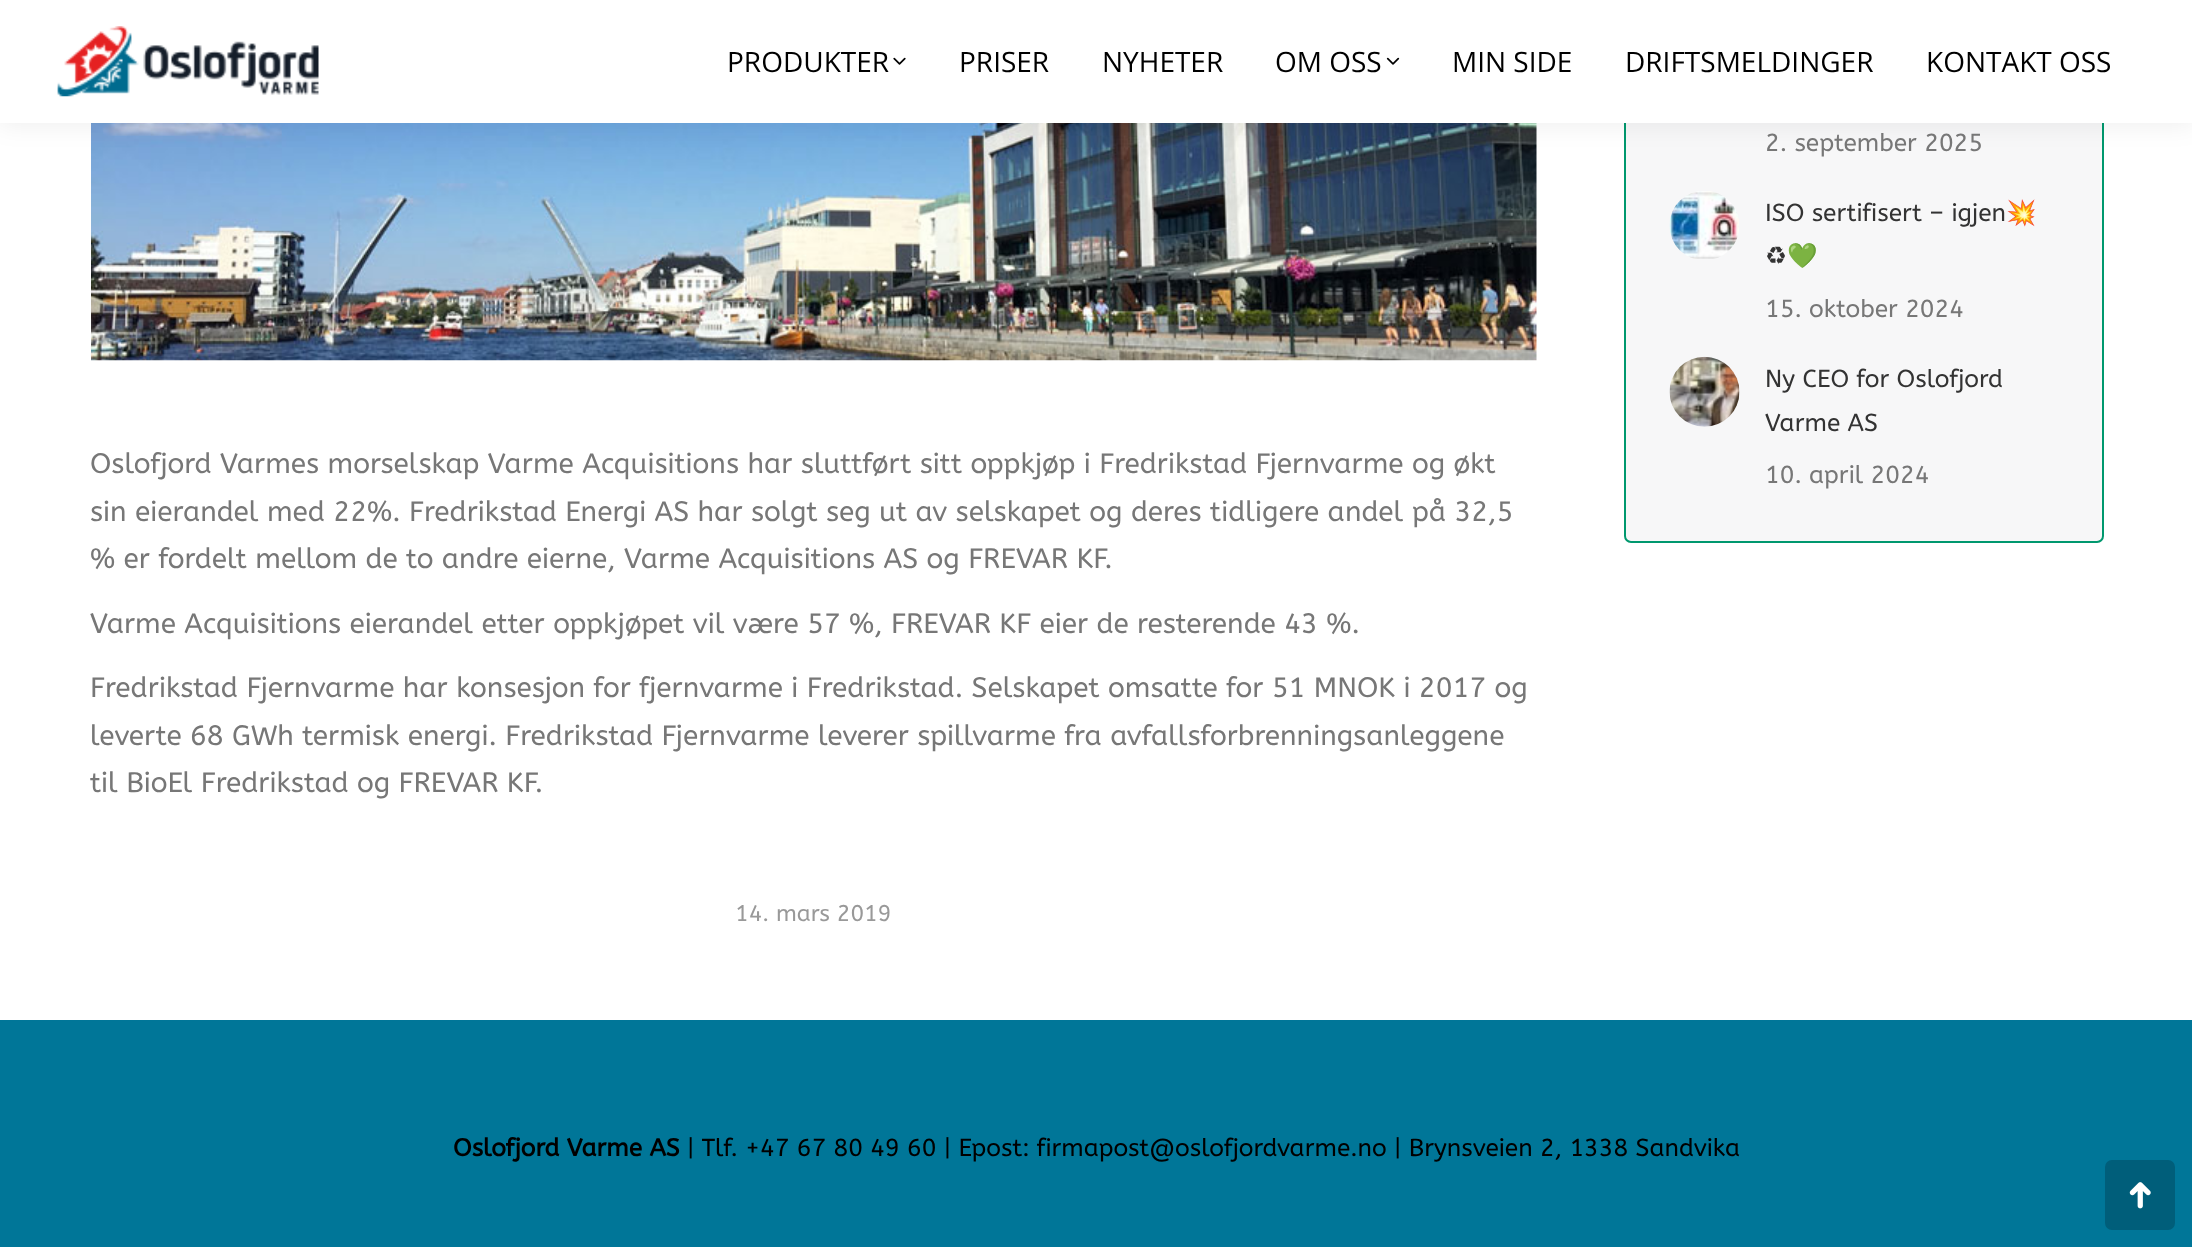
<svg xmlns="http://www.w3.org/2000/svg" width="2192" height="1247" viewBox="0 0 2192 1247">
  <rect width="100%" height="100%" fill="rgb(255,255,255)"/>
  <rect x="1625" y="-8" width="478" height="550" rx="6" fill="rgb(247,247,248)" stroke="rgb(0,152,110)" stroke-width="2"/>
  <image x="91" y="123" width="1446" height="238" href="pic6.png"/>
  <rect x="-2" y="-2" width="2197" height="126" fill="rgba(0,0,0,0.07)" filter="blur(13px)"/>
  <rect x="0" y="0" width="2192" height="123" fill="rgb(255,255,255)"/>
  <image x="57" y="26" width="262" height="71" href="pic1.png"/>
  <text x="727" y="72" font-family="Open Sans" font-size="28" fill="rgb(0,0,0)">PRODUKTER</text>
  <image x="893" y="57" width="13" height="8" href="pic2.png"/>
  <g font-family="Open Sans" font-size="28" fill="rgb(0,0,0)">
    <text x="959" y="72">PRISER</text>
    <text x="1102" y="72">NYHETER</text>
    <text x="1275" y="72">OM OSS</text>
  </g>
  <image x="1386" y="57" width="14" height="8" href="pic3.png"/>
  <g font-family="Open Sans" font-size="28" fill="rgb(0,0,0)">
    <text x="1452" y="72">MIN SIDE</text>
    <text x="1625" y="72">DRIFTSMELDINGER</text>
    <text x="1926" y="72">KONTAKT OSS</text>
  </g>
  <text x="1765" y="151" font-family="ABeeZee" font-size="24.5" fill="rgb(119,119,119)">2. september 2025</text>
  <image x="1669" y="191" width="70" height="68" href="pic4.png"/>
  <text x="1765" y="221" font-family="ABeeZee" font-size="24.5" fill="rgb(51,51,51)">ISO sertifisert – igjen</text>
  <text x="2006" y="221" font-family="Noto Color Emoji" font-size="24.5" fill="rgb(51,51,51)">💥</text>
  <text x="1765" y="264" font-family="DejaVu Sans" font-size="24.5" fill="rgb(51,51,51)">♻</text>
  <text x="1787" y="264" font-family="Noto Color Emoji" font-size="24.5" fill="rgb(51,51,51)">💚</text>
  <text x="1765" y="317" font-family="ABeeZee" font-size="24.5" fill="rgb(119,119,119)">15. oktober 2024</text>
  <image x="1669" y="356" width="71" height="71" href="pic5.png"/>
  <g font-family="ABeeZee" font-size="24.5" fill="rgb(51,51,51)">
    <text>
      <tspan x="1765" y="387">Ny CEO for Oslofjord</tspan>
      <tspan x="1765" y="431">Varme AS</tspan>
    </text>
  </g>
  <text x="1765" y="483" font-family="ABeeZee" font-size="24.5" fill="rgb(119,119,119)">10. april 2024</text>
  <g font-family="ABeeZee" font-size="28" fill="rgb(119,119,119)">
    <text>
      <tspan x="90" y="473">Oslofjord Varmes morselskap Varme Acquisitions har sluttført sitt oppkjøp i Fredrikstad Fjernvarme og økt</tspan>
      <tspan x="90" y="521">sin eierandel med 22%. Fredrikstad Energi AS har solgt seg ut av selskapet og deres tidligere andel på 32,5</tspan>
      <tspan x="90" y="568">% er fordelt mellom de to andre eierne, Varme Acquisitions AS og FREVAR KF.</tspan>
    </text>
    <text x="90" y="633">Varme Acquisitions eierandel etter oppkjøpet vil være 57 %, FREVAR KF eier de resterende 43 %.</text>
    <text>
      <tspan x="90" y="697">Fredrikstad Fjernvarme har konsesjon for fjernvarme i Fredrikstad. Selskapet omsatte for 51 MNOK i 2017 og</tspan>
      <tspan x="90" y="745">leverte 68 GWh termisk energi. Fredrikstad Fjernvarme leverer spillvarme fra avfallsforbrenningsanleggene</tspan>
      <tspan x="90" y="792">til BioEl Fredrikstad og FREVAR KF.</tspan>
    </text>
  </g>
  <text x="735" y="921" font-family="ABeeZee" font-size="22.75" fill="rgb(153,153,153)">14. mars 2019</text>
  <rect x="0" y="1020" width="2192" height="227" fill="rgb(0,118,152)"/>
  <text x="453" y="1156" font-family="ABeeZee" font-size="24.5" font-weight="bold" fill="rgb(0,0,0)">Oslofjord Varme AS</text>
  <text x="687" y="1156" font-family="ABeeZee" font-size="24.5" fill="rgb(0,0,0)">| Tlf. +47 67 80 49 60 | Epost: firmapost@oslofjordvarme.no | Brynsveien 2, 1338 Sandvika</text>
  <rect x="2105" y="1160" width="70" height="70" rx="7" fill="rgb(0,94,122)"/>
  <image x="2129" y="1182" width="22" height="27" href="pic7.png"/>
</svg>
